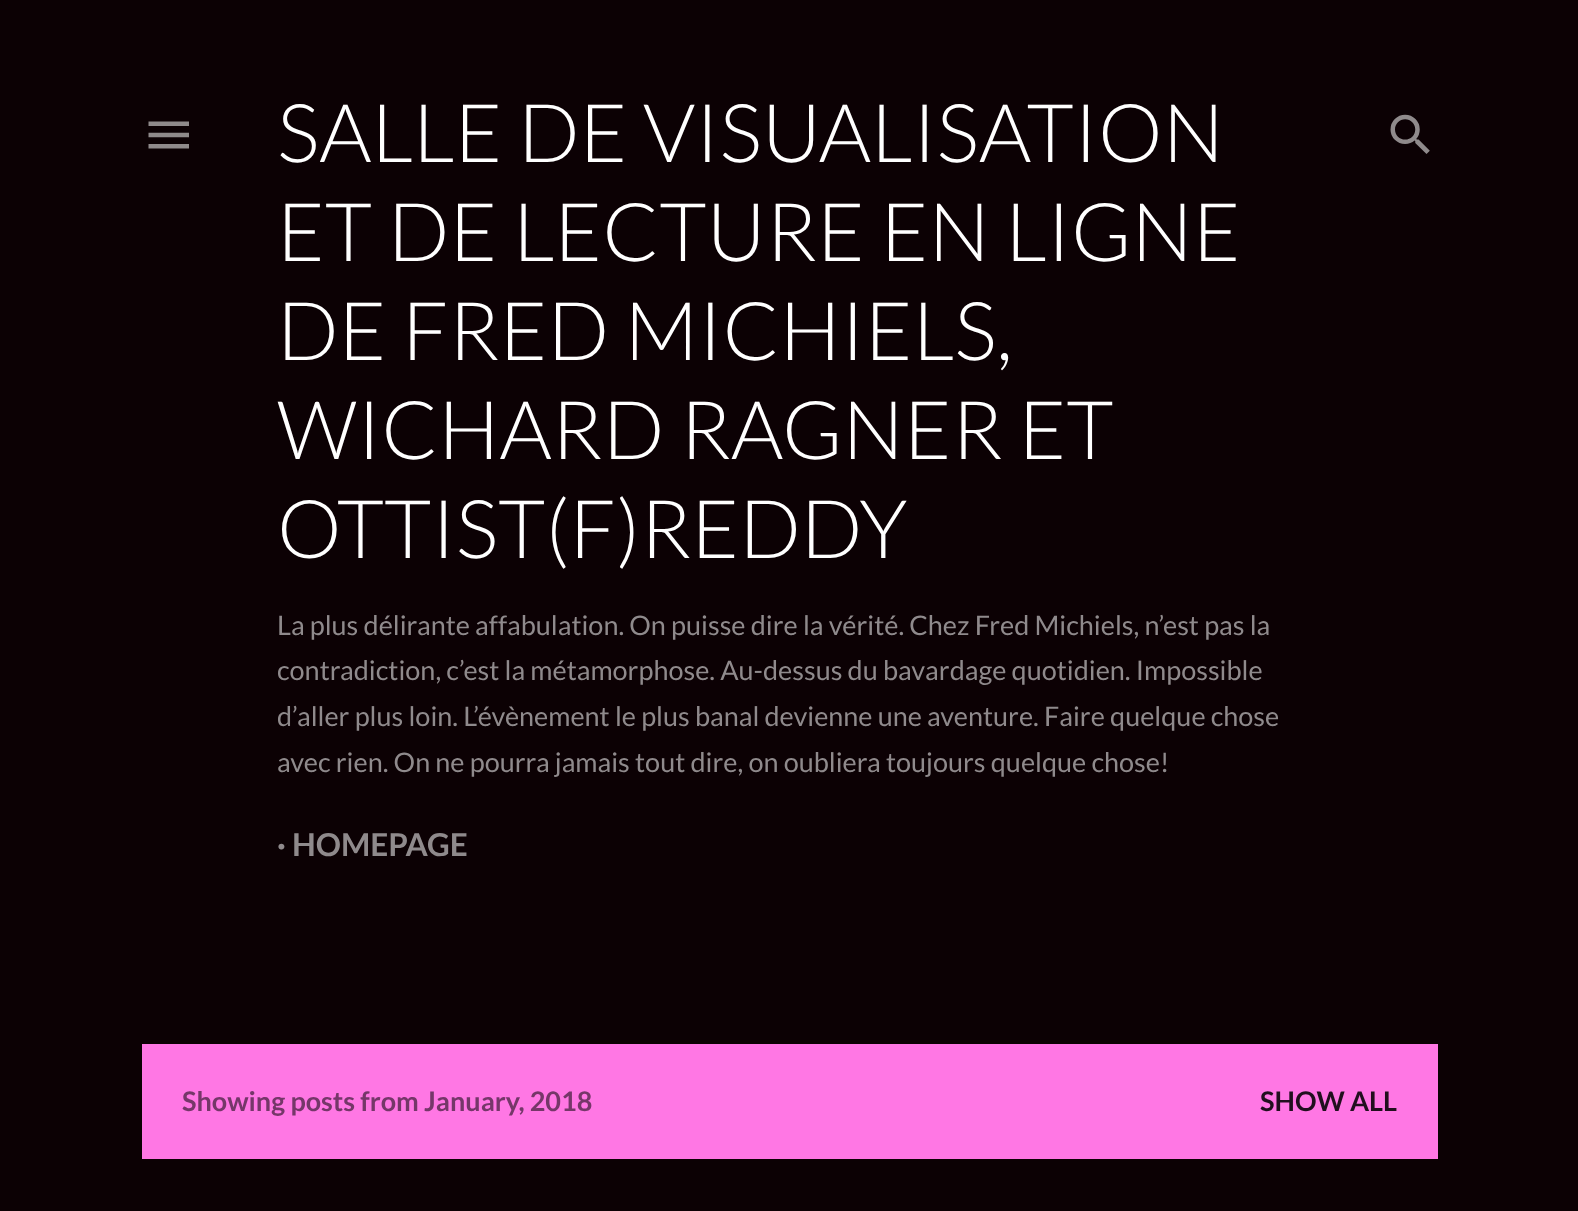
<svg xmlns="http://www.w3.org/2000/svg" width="1578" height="1211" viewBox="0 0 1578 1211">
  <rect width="100%" height="100%" fill="rgb(12,1,4)"/>
  <image x="148" y="121" width="41" height="28" href="pic1.png"/>
  <g font-family="Lato" font-size="81" font-weight="300" fill="rgb(255,255,255)">
    <text>
      <tspan x="277" y="162">SALLE DE VISUALISATION</tspan>
      <tspan x="277" y="261">ET DE LECTURE EN LIGNE</tspan>
      <tspan x="277" y="360">DE FRED MICHIELS,</tspan>
      <tspan x="277" y="459">WICHARD RAGNER ET</tspan>
      <tspan x="277" y="558">OTTIST(F)REDDY</tspan>
    </text>
  </g>
  <g font-family="Lato" font-size="27" fill="rgb(143,138,140)">
    <text>
      <tspan x="277" y="635">La plus délirante affabulation. On puisse dire la vérité. Chez Fred Michiels, n’est pas la</tspan>
      <tspan x="277" y="680">contradiction, c’est la métamorphose. Au-dessus du bavardage quotidien. Impossible</tspan>
      <tspan x="277" y="726">d’aller plus loin. L’évènement le plus banal devienne une aventure. Faire quelque chose</tspan>
      <tspan x="277" y="772">avec rien. On ne pourra jamais tout dire, on oubliera toujours quelque chose!</tspan>
    </text>
  </g>
  <text x="277" y="856" font-family="Lato" font-size="31.5" font-weight="bold" fill="rgb(143,138,140)">· HOMEPAGE</text>
  <image x="1390" y="114" width="40" height="40" href="pic2.png"/>
  <rect x="142" y="1044" width="1296" height="115" fill="rgb(255,119,228)"/>
  <text x="182" y="1111" font-family="Lato" font-size="27" font-weight="bold" fill="rgb(117,55,105)">Showing posts from January, 2018</text>
  <text x="1260" y="1111" font-family="Lato" font-size="27" font-weight="bold" fill="rgb(33,15,30)">SHOW ALL</text>
</svg>
